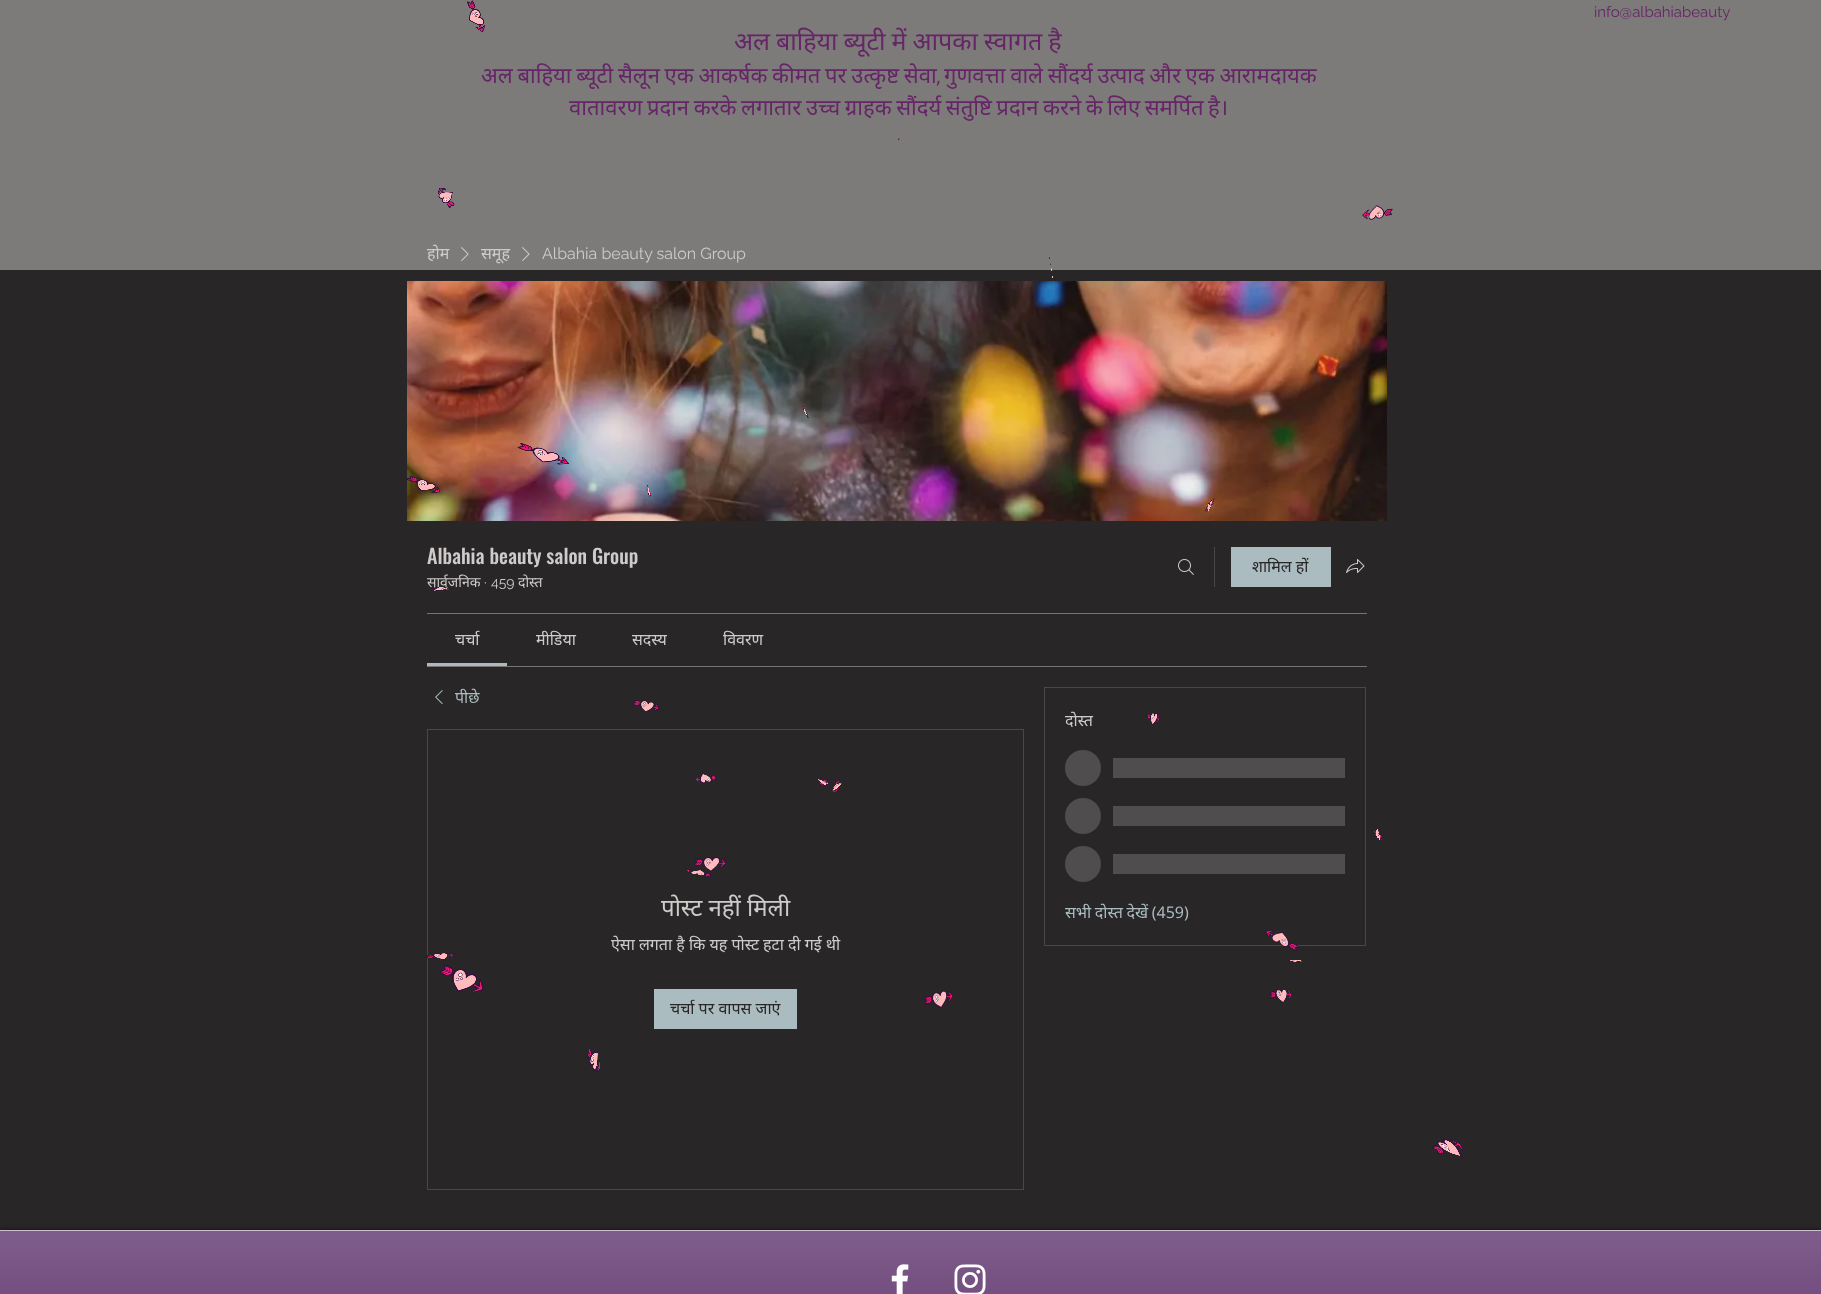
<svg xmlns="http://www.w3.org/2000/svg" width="1821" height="1294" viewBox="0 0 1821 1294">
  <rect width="100%" height="100%" fill="rgb(40,38,38)"/>
  <rect x="0" y="0" width="1821" height="270" fill="rgb(125,122,122)"/>
  <image x="467" y="0" width="18" height="33" href="pic1.png"/>
  <image x="438" y="188" width="17" height="20" href="pic2.png"/>
  <image x="1362" y="205" width="31" height="15" href="pic3.png"/>
  <image x="407" y="281" width="980" height="240" href="pic28.png"/>
  <image x="1049" y="257" width="5" height="26" href="pic4.png"/>
  <image x="802" y="406" width="7" height="12" href="pic5.png"/>
  <image x="517" y="443" width="52" height="22" href="pic6.png"/>
  <image x="407" y="475" width="34" height="18" href="pic7.png"/>
  <image x="647" y="485" width="4" height="12" href="pic8.png"/>
  <image x="1205" y="498" width="10" height="14" href="pic9.png"/>
  <text x="427" y="587" font-family="Noto Sans" font-size="14" fill="rgb(207,203,203)">सार्वजनिक</text>
  <image x="432" y="586" width="20" height="5" href="pic10.png"/>
  <image x="633" y="700" width="26" height="12" href="pic11.png"/>
  <rect x="1044.5" y="687.5" width="321" height="258" fill="none" stroke="rgb(73,71,71)"/>
  <image x="1147" y="712" width="13" height="13" href="pic12.png"/>
  <rect x="427.5" y="729.5" width="596" height="460" fill="none" stroke="rgb(73,71,71)"/>
  <image x="695" y="773" width="22" height="10" href="pic13.png"/>
  <image x="817" y="779" width="13" height="7" href="pic14.png"/>
  <image x="832" y="780" width="11" height="12" href="pic15.png"/>
  <image x="1374" y="828" width="8" height="13" href="pic16.png"/>
  <image x="694" y="857" width="33" height="15" href="pic17.png"/>
  <image x="686" y="869" width="27" height="8" href="pic18.png"/>
  <image x="1265" y="930" width="34" height="22" href="pic19.png"/>
  <image x="425" y="953" width="29" height="7" href="pic20.png"/>
  <image x="1289" y="959" width="14" height="3" href="pic21.png"/>
  <image x="439" y="964" width="45" height="29" href="pic22.png"/>
  <image x="924" y="990" width="30" height="18" href="pic23.png"/>
  <image x="1270" y="989" width="22" height="14" href="pic24.png"/>
  <image x="587" y="1048" width="13" height="24" href="pic25.png"/>
  <image x="1431" y="1139" width="32" height="18" href="pic26.png"/>
  <text x="1594" y="17" font-family="Raleway" font-size="15" fill="rgb(102,37,102)">info@albahiabeauty</text>
  <text x="734" y="50" word-spacing="-0.5" font-family="Noto Sans" font-size="25" fill="rgb(102,37,102)">अल बाहिया ब्यूटी में आपका स्वागत है</text>
  <text x="481" y="83" word-spacing="-1" font-family="Noto Sans" font-size="22" fill="rgb(102,37,102)">अल बाहिया ब्यूटी सैलून एक आकर्षक कीमत पर उत्कृष्ट सेवा</text>
  <text x="936" y="83" font-family="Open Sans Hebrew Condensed" font-size="22" fill="rgb(102,37,102)">,</text>
  <g font-family="Noto Sans" font-size="22" fill="rgb(102,37,102)">
    <text x="944" y="83" word-spacing="-1">गुणवत्ता वाले सौंदर्य उत्पाद और एक आरामदायक</text>
    <text x="569" y="115" word-spacing="-1.1">वातावरण प्रदान करके लगातार उच्च ग्राहक सौंदर्य संतुष्टि प्रदान करने के लिए समर्पित है।</text>
  </g>
  <text x="897" y="140" font-family="Open Sans Hebrew Condensed" font-size="15" fill="rgb(102,37,102)">.</text>
  <text x="427" y="259" font-family="Noto Sans" font-size="16" fill="rgb(207,203,203)">होम</text>
  <image x="461" y="247" width="8" height="14" href="pic27.png"/>
  <text x="481" y="259" font-family="Noto Sans" font-size="16" fill="rgb(207,203,203)">समूह</text>
  <image x="522" y="247" width="8" height="14" href="pic27.png"/>
  <text x="542" y="259" font-family="Raleway" font-size="16" fill="rgb(207,203,203)">Albahia beauty salon Group</text>
  <text x="427" y="564" font-family="Oswald" font-size="20" font-weight="500" fill="rgb(207,203,203)">Albahia beauty salon Group</text>
  <g font-family="Raleway" font-size="14" fill="rgb(207,203,203)">
    <text x="484" y="587">·</text>
    <text x="491" y="587">459</text>
  </g>
  <text x="518" y="587" font-family="Noto Sans" font-size="14" fill="rgb(207,203,203)">दोस्त</text>
  <image x="1178" y="559" width="16" height="16" href="pic29.png"/>
  <rect x="1214" y="547" width="1" height="40" fill="rgb(73,71,71)"/>
  <rect x="1231" y="547" width="100" height="40" fill="rgb(170,188,191)"/>
  <text x="1252" y="572" font-family="Noto Sans" font-size="16" fill="rgb(40,38,38)">शामिल हों</text>
  <image x="1346" y="559" width="19" height="14" href="pic30.png"/>
  <rect x="427" y="613" width="940" height="1" fill="rgb(118,115,115)"/>
  <rect x="427" y="666" width="940" height="1" fill="rgb(118,115,115)"/>
  <rect x="427" y="663" width="80" height="3" fill="rgb(170,188,191)"/>
  <g font-family="Noto Sans" font-size="16" fill="rgb(207,203,203)">
    <text x="455" y="645">चर्चा</text>
    <text x="536" y="645">मीडिया</text>
    <text x="632" y="645">सदस्य</text>
    <text x="723" y="645">विवरण</text>
  </g>
  <image x="435" y="690" width="8" height="14" href="pic31.png"/>
  <text x="455" y="703" font-family="Noto Sans" font-size="16" fill="rgb(170,188,191)">पीछे</text>
  <text x="661" y="916" font-family="Noto Sans" font-size="24" fill="rgb(207,203,203)">पोस्ट नहीं मिली</text>
  <text x="611" y="950" font-family="Noto Sans" font-size="16" fill="rgb(207,203,203)">ऐसा लगता है कि यह पोस्ट हटा दी गई थी</text>
  <rect x="654" y="989" width="143" height="40" fill="rgb(170,188,191)"/>
  <text x="670" y="1014" font-family="Noto Sans" font-size="16" fill="rgb(40,38,38)">चर्चा पर वापस जाएं</text>
  <text x="1065" y="726" font-family="Noto Sans" font-size="16" fill="rgb(207,203,203)">दोस्त</text>
  <circle cx="1083" cy="768" r="18" fill="rgb(79,77,77)"/>
  <rect x="1113" y="758" width="232" height="20" fill="rgb(79,77,77)"/>
  <circle cx="1083" cy="816" r="18" fill="rgb(79,77,77)"/>
  <rect x="1113" y="806" width="232" height="20" fill="rgb(79,77,77)"/>
  <circle cx="1083" cy="864" r="18" fill="rgb(79,77,77)"/>
  <rect x="1113" y="854" width="232" height="20" fill="rgb(79,77,77)"/>
  <text x="1065" y="918" word-spacing="-0.5" font-family="Noto Sans" font-size="16" fill="rgb(170,188,191)">सभी दोस्त देखें (459)</text>
  <rect x="0" y="1230" width="1821" height="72" fill="rgba(0,0,0,0.6)" filter="blur(2.5px)"/>
  <rect x="0" y="1231" width="1821" height="63" fill="rgb(83,37,99)"/>
  <image x="0" y="1231" width="1821" height="63" href="pic32.png"/>
  <rect x="0" y="1230" width="1821" height="1" fill="rgb(204,190,209)"/>
  <image x="891" y="1264" width="18" height="30" href="pic33.png"/>
  <image x="954" y="1264" width="32" height="30" href="pic34.png"/>
</svg>
